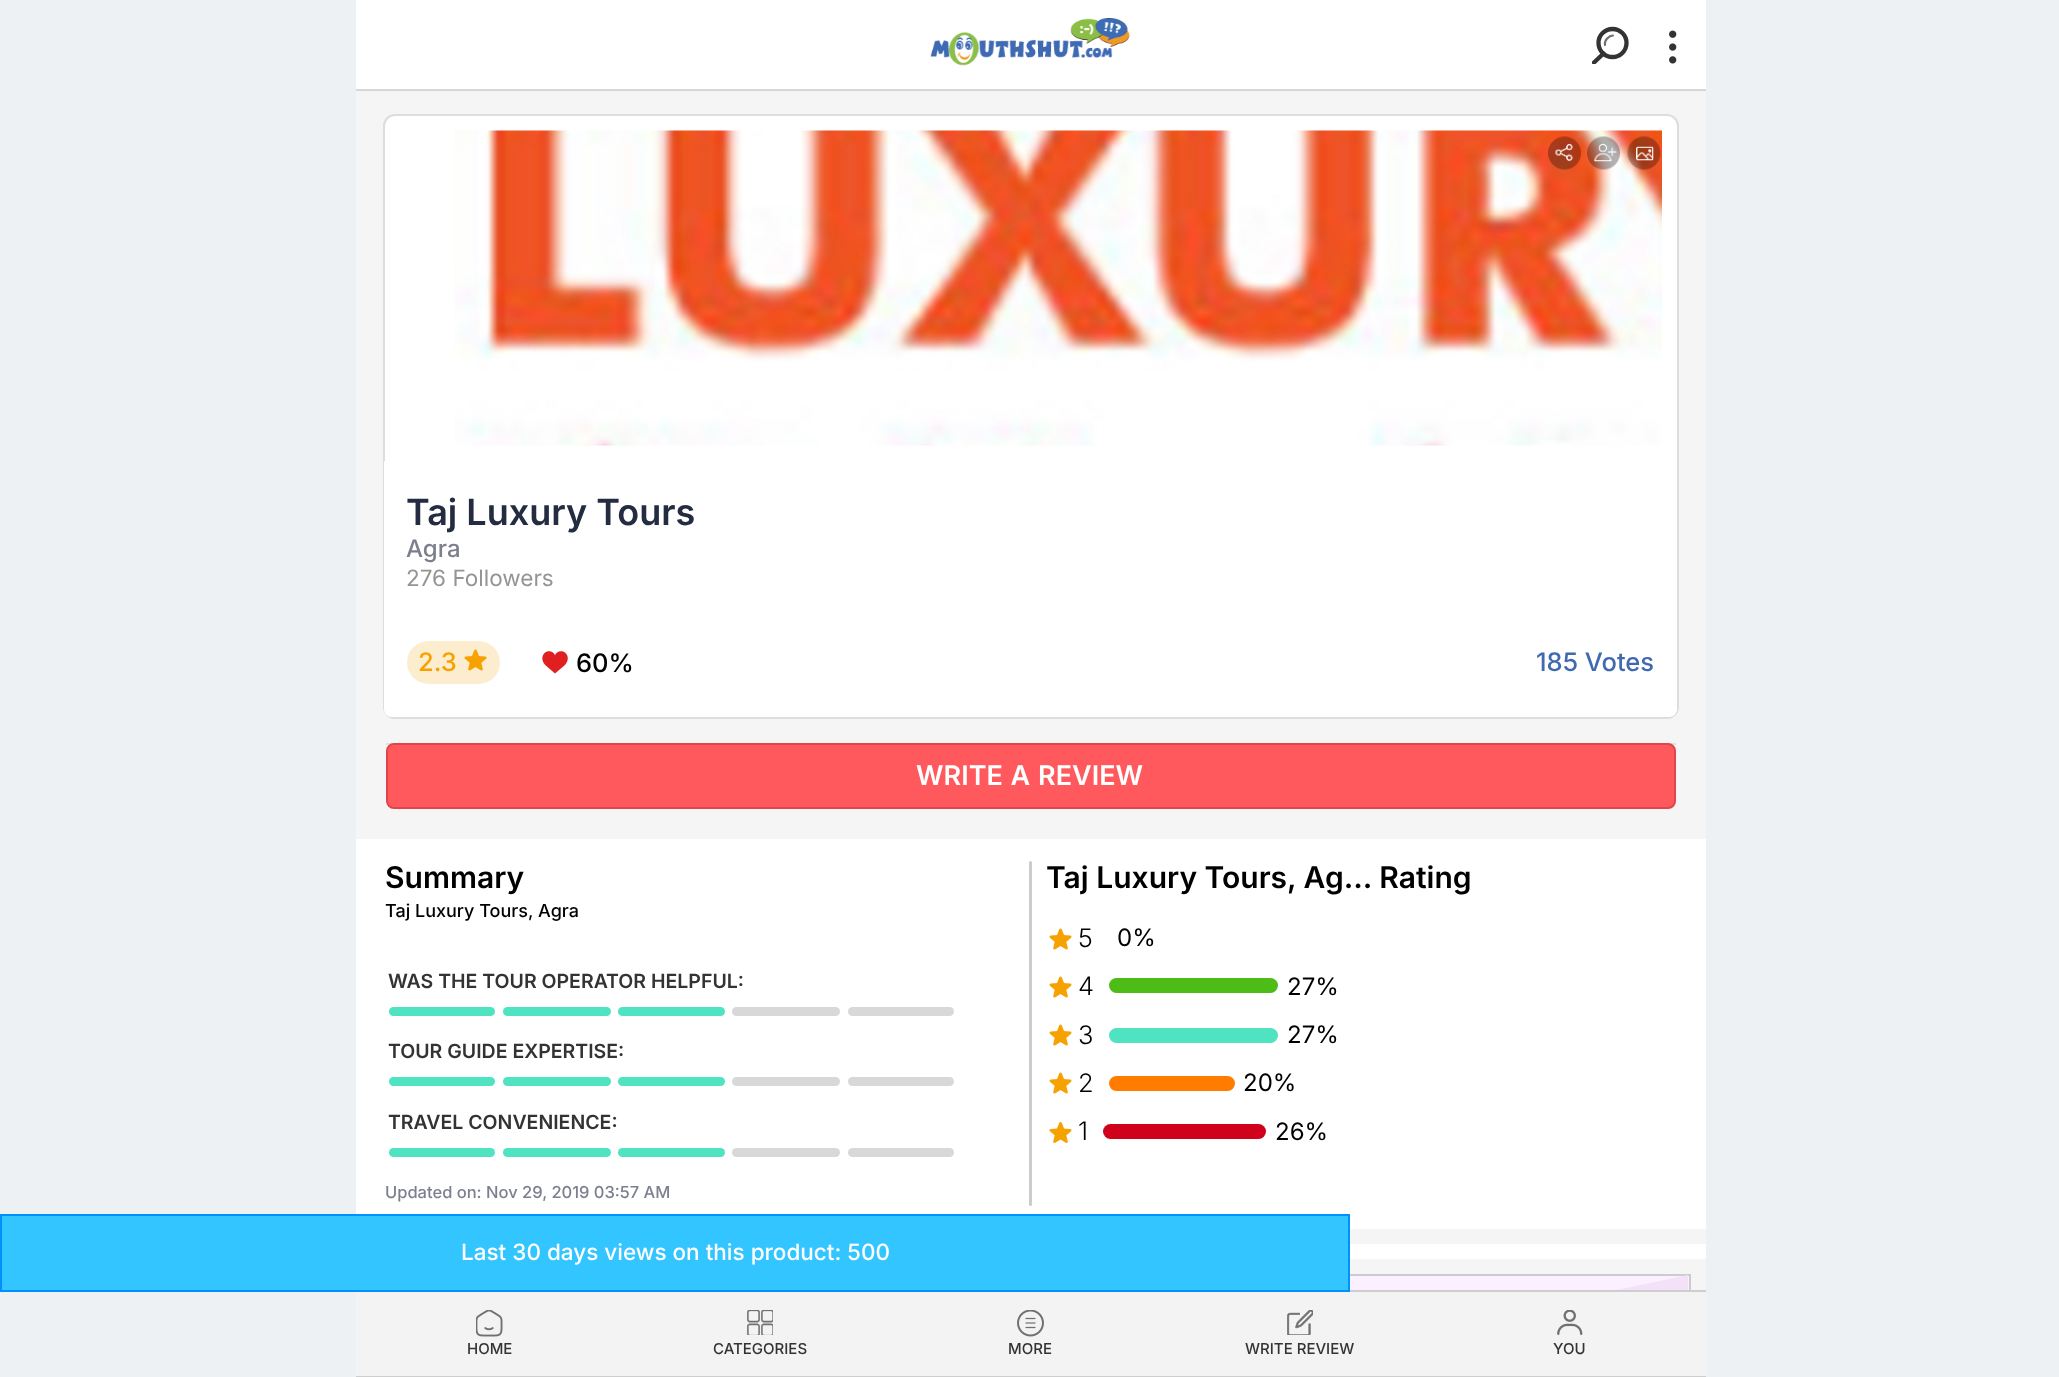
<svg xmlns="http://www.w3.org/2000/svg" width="2059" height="1377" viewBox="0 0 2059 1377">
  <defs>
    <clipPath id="clip1"><rect x="1592" y="27" width="37" height="37"/></clipPath>
  </defs>
  <rect width="100%" height="100%" fill="rgb(237,241,244)"/>
  <rect x="356" y="0" width="1350" height="89" fill="rgb(255,255,255)"/>
  <rect x="356" y="89" width="1350" height="1" fill="rgb(217,217,217)"/>
  <image x="930" y="18" width="200" height="48" href="pic1.png"/>
  <circle cx="1612.5" cy="43" r="14" fill="none" stroke="rgb(51,51,51)" stroke-width="4.3"/>
  <image x="1669" y="30" width="8" height="34" href="pic2.png"/>
  <path d="M1613 35.5C1609 35.5 1604 40.5 1605 45" fill="none" stroke="rgb(112,112,112)" stroke-width="2.1" stroke-linecap="round"/>
  <g clip-path="url(#clip1)">
    <path d="M1594 62.5L1603.5 53.5" fill="none" stroke="rgb(51,51,51)" stroke-width="4.3" stroke-linecap="round" stroke-linejoin="round"/>
  </g>
  <rect x="356" y="91" width="1350" height="1199" fill="rgb(245,245,245)"/>
  <rect x="356" y="90" width="1350" height="1" fill="rgb(212,212,212)"/>
  <rect x="384" y="115" width="1294" height="603" rx="11" fill="rgb(255,255,255)" stroke="rgb(221,221,221)" stroke-width="2"/>
  <image x="454" y="130" width="1208" height="316" href="pic6.png"/>
  <image x="1548" y="136" width="33" height="34" href="pic3.png"/>
  <image x="1587" y="136" width="33" height="34" href="pic4.png"/>
  <image x="1627" y="136" width="34" height="34" href="pic5.png"/>
  <path d="M384 461H1677V709C1677 713.5 1673.5 717 1669 717H392C387.5 717 384 713.5 384 709Z" fill="rgb(255,255,255)"/>
  <text x="406" y="525" font-family="Inter" font-size="36" font-weight="600" fill="rgb(36,44,66)">Taj Luxury Tours</text>
  <text x="406" y="557" font-family="Inter" font-size="24" font-weight="500" fill="rgb(124,128,142)">Agra</text>
  <text x="406" y="586" font-family="Inter" font-size="22.5" fill="rgb(148,148,148)">276 Followers</text>
  <rect x="407" y="641" width="93" height="43" rx="21.5" fill="rgb(253,237,207)"/>
  <text x="418" y="671" font-family="Inter" font-size="25.5" font-weight="500" fill="rgb(247,162,0)">2.3</text>
  <image x="464" y="649" width="23" height="22" href="pic7.png"/>
  <image x="542" y="651" width="26" height="23" href="pic8.png"/>
  <text x="576" y="672" font-family="Inter" font-size="25.5" font-weight="500" fill="rgb(0,0,0)">60%</text>
  <text x="1536" y="671" font-family="Inter" font-size="25.5" font-weight="500" fill="rgb(65,105,178)">185 Votes</text>
  <rect x="386" y="743" width="1290" height="2" fill="rgb(224,225,227)"/>
  <rect x="387" y="744" width="1288" height="64" rx="7" fill="rgb(255,89,94)" stroke="rgb(225,68,73)" stroke-width="2"/>
  <text x="916" y="785" word-spacing="1" font-family="Inter" font-size="27" font-weight="600" fill="rgb(255,255,255)">WRITE A REVIEW</text>
  <rect x="356" y="839" width="1350" height="390" fill="rgb(255,255,255)"/>
  <text x="385" y="888" font-family="Inter" font-size="30" font-weight="600" fill="rgb(0,0,0)">Summary</text>
  <text x="385" y="917" font-family="Inter" font-size="18" font-weight="500" fill="rgb(0,0,0)">Taj Luxury Tours, Agra</text>
  <text x="388" y="988" font-family="Inter" font-size="19.5" font-weight="600" fill="rgb(51,51,51)">WAS THE TOUR OPERATOR HELPFUL:</text>
  <rect x="389" y="1007" width="106" height="9" rx="4.5" fill="rgb(80,227,194)"/>
  <rect x="503" y="1007" width="108" height="9" rx="4.5" fill="rgb(80,227,194)"/>
  <rect x="618" y="1007" width="107" height="9" rx="4.5" fill="rgb(80,227,194)"/>
  <rect x="732" y="1007" width="108" height="9" rx="4.5" fill="rgb(216,216,216)"/>
  <rect x="848" y="1007" width="106" height="9" rx="4.5" fill="rgb(216,216,216)"/>
  <text x="388" y="1058" font-family="Inter" font-size="19.5" font-weight="600" fill="rgb(51,51,51)">TOUR GUIDE EXPERTISE:</text>
  <rect x="389" y="1077" width="106" height="9" rx="4.5" fill="rgb(80,227,194)"/>
  <rect x="503" y="1077" width="108" height="9" rx="4.5" fill="rgb(80,227,194)"/>
  <rect x="618" y="1077" width="107" height="9" rx="4.5" fill="rgb(80,227,194)"/>
  <rect x="732" y="1077" width="108" height="9" rx="4.5" fill="rgb(216,216,216)"/>
  <rect x="848" y="1077" width="106" height="9" rx="4.5" fill="rgb(216,216,216)"/>
  <text x="388" y="1129" font-family="Inter" font-size="19.5" font-weight="600" fill="rgb(51,51,51)">TRAVEL CONVENIENCE:</text>
  <rect x="389" y="1148" width="106" height="9" rx="4.5" fill="rgb(80,227,194)"/>
  <rect x="503" y="1148" width="108" height="9" rx="4.5" fill="rgb(80,227,194)"/>
  <rect x="618" y="1148" width="107" height="9" rx="4.5" fill="rgb(80,227,194)"/>
  <rect x="732" y="1148" width="108" height="9" rx="4.5" fill="rgb(216,216,216)"/>
  <rect x="848" y="1148" width="106" height="9" rx="4.5" fill="rgb(216,216,216)"/>
  <text x="385" y="1198" font-family="Inter" font-size="16.5" font-weight="500" fill="rgb(124,128,142)">Updated on: Nov 29, 2019 03:57 AM</text>
  <rect x="1029" y="861" width="3" height="345" rx="1.5" fill="rgb(204,204,204)"/>
  <text x="1046" y="888" font-family="Inter" font-size="30" font-weight="600" fill="rgb(0,0,0)">Taj Luxury Tours, Ag... Rating</text>
  <image x="1049" y="928" width="23" height="22" href="pic9.png"/>
  <text x="1078" y="947" font-family="Inter" font-size="25.5" font-weight="300" fill="rgb(0,0,0)">5</text>
  <text x="1117" y="946" font-family="Inter" font-size="24" fill="rgb(0,0,0)">0%</text>
  <image x="1049" y="976" width="23" height="22" href="pic9.png"/>
  <text x="1078" y="995" font-family="Inter" font-size="25.5" font-weight="300" fill="rgb(0,0,0)">4</text>
  <rect x="1109" y="978" width="169" height="15" rx="7.5" fill="rgb(77,188,22)"/>
  <text x="1287" y="995" font-family="Inter" font-size="24" fill="rgb(0,0,0)">27%</text>
  <image x="1049" y="1024" width="23" height="22" href="pic9.png"/>
  <text x="1078" y="1044" font-family="Inter" font-size="25.5" font-weight="300" fill="rgb(0,0,0)">3</text>
  <rect x="1109" y="1028" width="169" height="15" rx="7.5" fill="rgb(80,227,194)"/>
  <text x="1287" y="1043" font-family="Inter" font-size="24" fill="rgb(0,0,0)">27%</text>
  <image x="1049" y="1072" width="23" height="22" href="pic9.png"/>
  <text x="1078" y="1092" font-family="Inter" font-size="25.5" font-weight="300" fill="rgb(0,0,0)">2</text>
  <rect x="1109" y="1076" width="126" height="15" rx="7.5" fill="rgb(255,124,0)"/>
  <text x="1243" y="1091" font-family="Inter" font-size="24" fill="rgb(0,0,0)">20%</text>
  <image x="1049" y="1122" width="23" height="21" href="pic10.png"/>
  <text x="1078" y="1140" font-family="Inter" font-size="25.5" font-weight="300" fill="rgb(0,0,0)">1</text>
  <rect x="1103" y="1124" width="163" height="15" rx="7.5" fill="rgb(208,2,27)"/>
  <text x="1275" y="1140" font-family="Inter" font-size="24" fill="rgb(0,0,0)">26%</text>
  <rect x="1350" y="1244" width="356" height="15" fill="rgb(255,255,255)"/>
  <rect x="1350" y="1276" width="339" height="14" fill="rgb(250,240,255)"/>
  <rect x="372" y="1275" width="1318" height="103" fill="none" stroke="rgb(204,204,204)" stroke-width="2"/>
  <path d="M371 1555L1688 1275V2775L371 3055Z" fill="rgb(242,225,248)"/>
  <rect x="356" y="1292" width="1350" height="84" fill="rgb(243,243,243)"/>
  <rect x="1350" y="1290" width="356" height="2" fill="rgb(206,206,206)"/>
  <rect x="356" y="1376" width="1350" height="1" fill="rgb(206,206,206)"/>
  <image x="476" y="1310" width="27" height="27" href="pic11.png"/>
  <text x="467" y="1354" font-family="Inter" font-size="15" font-weight="500" fill="rgb(51,51,51)">HOME</text>
  <image x="747" y="1310" width="26" height="25" href="pic12.png"/>
  <text x="713" y="1354" font-family="Inter" font-size="15" font-weight="500" fill="rgb(51,51,51)">CATEGORIES</text>
  <image x="1017" y="1310" width="27" height="27" href="pic13.png"/>
  <text x="1008" y="1354" font-family="Inter" font-size="15" font-weight="500" fill="rgb(51,51,51)">MORE</text>
  <image x="1287" y="1310" width="26" height="25" href="pic14.png"/>
  <text x="1245" y="1354" font-family="Inter" font-size="15" font-weight="500" fill="rgb(51,51,51)">WRITE REVIEW</text>
  <image x="1557" y="1310" width="26" height="25" href="pic15.png"/>
  <text x="1553" y="1354" font-family="Inter" font-size="15" font-weight="500" fill="rgb(51,51,51)">YOU</text>
  <rect x="1" y="1215" width="1348" height="76" fill="rgb(50,197,255)" stroke="rgb(0,145,255)" stroke-width="2"/>
  <text x="461" y="1260" font-family="Inter" font-size="22.5" font-weight="500" fill="rgb(255,255,255)">Last 30 days views on this product: 500</text>
</svg>
